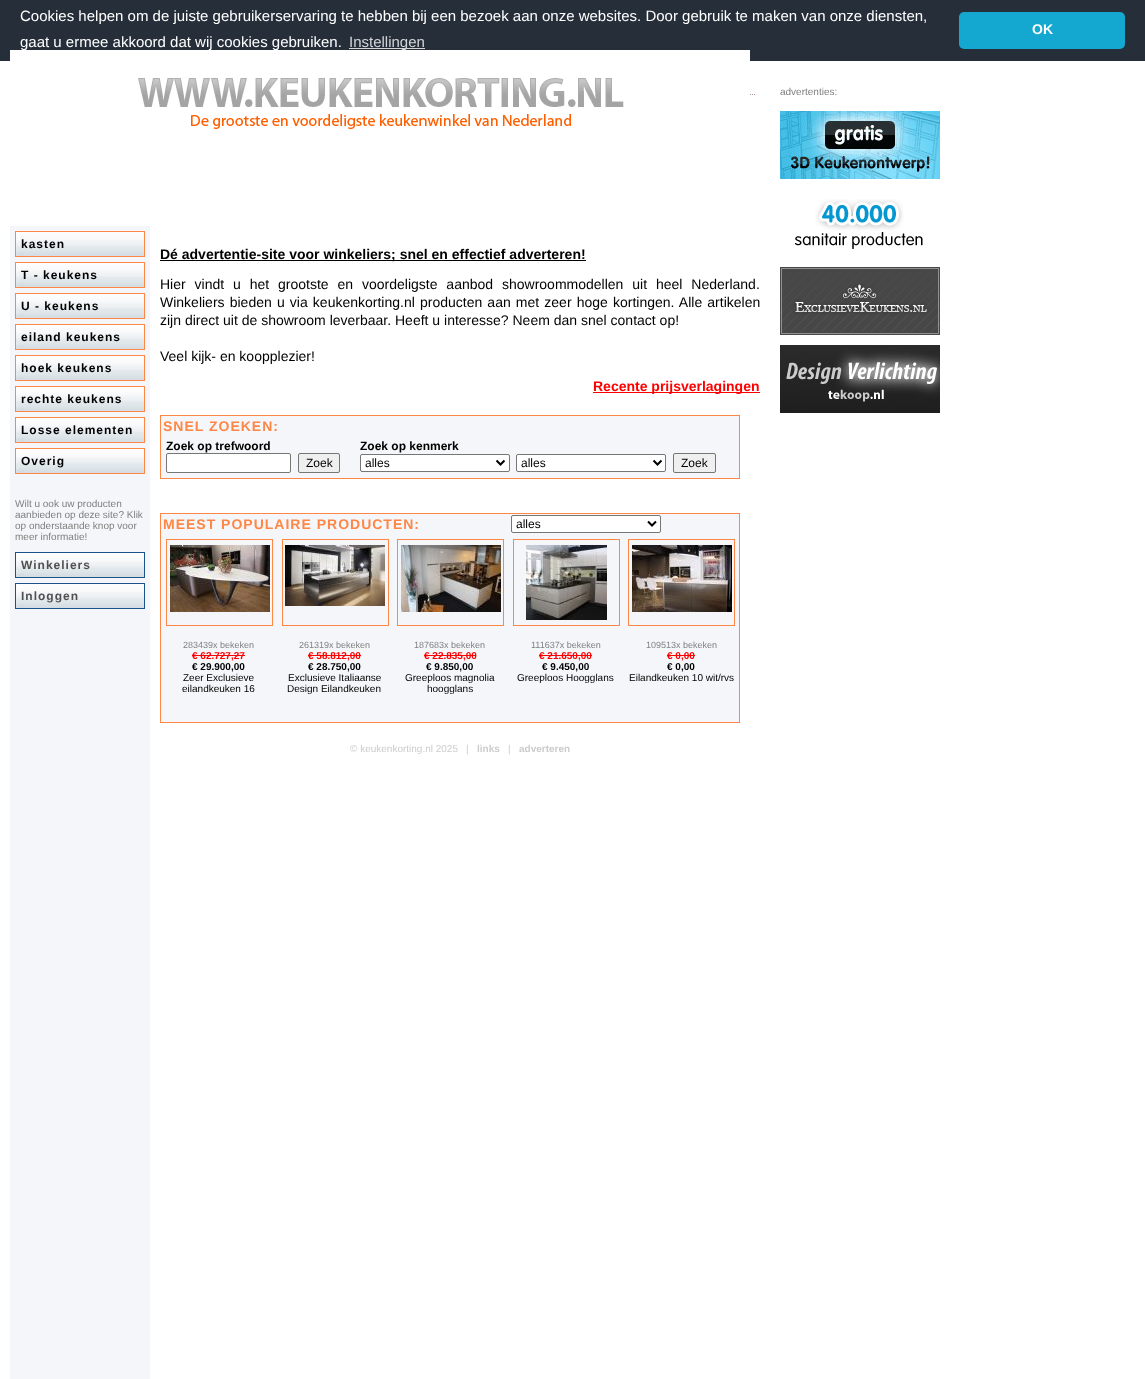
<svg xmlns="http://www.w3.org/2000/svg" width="1145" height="1379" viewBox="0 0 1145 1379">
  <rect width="100%" height="100%" fill="rgb(255,255,255)"/>
  <rect x="0" y="0" width="1145" height="61" fill="rgb(37,46,57)"/>
  <g font-family="Liberation Sans" font-size="15" fill="rgb(255,255,255)">
    <text>
      <tspan x="20" y="21">Cookies helpen om de juiste gebruikerservaring te hebben bij een bezoek aan onze websites. Door gebruik te maken van onze diensten,</tspan>
      <tspan x="20" y="47">gaat u ermee akkoord dat wij cookies gebruiken.</tspan>
    </text>
  </g>
  <rect x="349" y="48" width="76" height="1" fill="rgb(211,213,215)"/>
  <text x="349" y="47" font-family="Liberation Sans" font-size="15" fill="rgb(211,213,215)">Instellingen</text>
  <rect x="959" y="12" width="166" height="37" rx="5" fill="rgb(20,167,208)"/>
  <text x="1032" y="34" font-family="Liberation Sans" font-size="14" font-weight="bold" fill="rgb(255,255,255)">OK</text>
  <path d="M300 94.5H755" fill="none" stroke="rgb(170,150,139)" stroke-dasharray="1 1"/>
  <image x="10" y="50" width="740" height="79" href="pic1.png"/>
  <text x="780" y="95" font-family="Liberation Sans" font-size="10" fill="rgb(128,128,128)">advertenties:</text>
  <image x="780" y="111" width="160" height="68" href="pic2.png"/>
  <image x="795" y="199" width="128" height="50" href="pic3.png"/>
  <image x="780" y="267" width="160" height="68" href="pic4.png"/>
  <image x="780" y="345" width="160" height="68" href="pic5.png"/>
  <rect x="10" y="226" width="140" height="1153" fill="rgb(244,246,249)"/>
  <image x="16" y="232" width="128" height="24" href="pic6.png"/>
  <rect x="15.5" y="231.5" width="129" height="25" fill="none" stroke="rgb(254,135,70)"/>
  <text x="21" y="248" font-family="Liberation Sans" font-size="12" font-weight="bold" letter-spacing="1" fill="rgb(0,0,0)">kasten</text>
  <image x="16" y="263" width="128" height="24" href="pic6.png"/>
  <rect x="15.5" y="262.5" width="129" height="25" fill="none" stroke="rgb(254,135,70)"/>
  <text x="21" y="279" font-family="Liberation Sans" font-size="12" font-weight="bold" letter-spacing="1" fill="rgb(0,0,0)">T - keukens</text>
  <image x="16" y="294" width="128" height="24" href="pic6.png"/>
  <rect x="15.5" y="293.5" width="129" height="25" fill="none" stroke="rgb(254,135,70)"/>
  <text x="21" y="310" font-family="Liberation Sans" font-size="12" font-weight="bold" letter-spacing="1" fill="rgb(0,0,0)">U - keukens</text>
  <image x="16" y="325" width="128" height="24" href="pic6.png"/>
  <rect x="15.5" y="324.5" width="129" height="25" fill="none" stroke="rgb(254,135,70)"/>
  <text x="21" y="341" font-family="Liberation Sans" font-size="12" font-weight="bold" letter-spacing="1" fill="rgb(0,0,0)">eiland keukens</text>
  <image x="16" y="356" width="128" height="24" href="pic6.png"/>
  <rect x="15.5" y="355.5" width="129" height="25" fill="none" stroke="rgb(254,135,70)"/>
  <text x="21" y="372" font-family="Liberation Sans" font-size="12" font-weight="bold" letter-spacing="1" fill="rgb(0,0,0)">hoek keukens</text>
  <image x="16" y="387" width="128" height="24" href="pic6.png"/>
  <rect x="15.5" y="386.5" width="129" height="25" fill="none" stroke="rgb(254,135,70)"/>
  <text x="21" y="403" font-family="Liberation Sans" font-size="12" font-weight="bold" letter-spacing="1" fill="rgb(0,0,0)">rechte keukens</text>
  <image x="16" y="418" width="128" height="24" href="pic6.png"/>
  <rect x="15.5" y="417.5" width="129" height="25" fill="none" stroke="rgb(254,135,70)"/>
  <text x="21" y="434" font-family="Liberation Sans" font-size="12" font-weight="bold" letter-spacing="1" fill="rgb(0,0,0)">Losse elementen</text>
  <image x="16" y="449" width="128" height="24" href="pic6.png"/>
  <rect x="15.5" y="448.5" width="129" height="25" fill="none" stroke="rgb(254,135,70)"/>
  <text x="21" y="465" font-family="Liberation Sans" font-size="12" font-weight="bold" letter-spacing="1" fill="rgb(0,0,0)">Overig</text>
  <g font-family="Liberation Sans" font-size="10" fill="rgb(128,128,128)">
    <text>
      <tspan x="15" y="507">Wilt u ook uw producten</tspan>
      <tspan x="15" y="518">aanbieden op deze site? Klik</tspan>
      <tspan x="15" y="529">op onderstaande knop voor</tspan>
      <tspan x="15" y="540">meer informatie!</tspan>
    </text>
  </g>
  <image x="16" y="553" width="128" height="24" href="pic6.png"/>
  <rect x="15.5" y="552.5" width="129" height="25" fill="none" stroke="rgb(28,82,138)"/>
  <text x="21" y="569" font-family="Liberation Sans" font-size="12" font-weight="bold" letter-spacing="1" fill="rgb(80,80,80)">Winkeliers</text>
  <image x="16" y="584" width="128" height="24" href="pic6.png"/>
  <rect x="15.5" y="583.5" width="129" height="25" fill="none" stroke="rgb(28,82,138)"/>
  <text x="21" y="600" font-family="Liberation Sans" font-size="12" font-weight="bold" letter-spacing="1" fill="rgb(80,80,80)">Inloggen</text>
  <rect x="160" y="260" width="426" height="1" fill="rgb(0,0,0)"/>
  <text x="160" y="259" font-family="Liberation Sans" font-size="14" font-weight="bold" fill="rgb(0,0,0)">Dé advertentie-site voor winkeliers; snel en effectief adverteren!</text>
  <g font-family="Liberation Sans" font-size="14" fill="rgb(0,0,0)">
    <text>
      <tspan x="160" y="289" word-spacing="5">Hier vindt u het grootste en voordeligste aanbod showroommodellen uit heel Nederland.</tspan>
      <tspan x="160" y="307" word-spacing="1.25">Winkeliers bieden u via keukenkorting.nl producten aan met zeer hoge kortingen. Alle artikelen</tspan>
      <tspan x="160" y="325">zijn direct uit de showroom leverbaar. Heeft u interesse? Neem dan snel contact op!</tspan>
    </text>
    <text x="160" y="361">Veel kijk- en koopplezier!</text>
  </g>
  <rect x="593" y="392" width="167" height="1" fill="rgb(255,0,0)"/>
  <text x="593" y="391" font-family="Liberation Sans" font-size="14" font-weight="bold" fill="rgb(255,0,0)">Recente prijsverlagingen</text>
  <rect x="160.5" y="415.5" width="579" height="63" fill="rgb(245,246,249)" stroke="rgb(254,135,70)"/>
  <text x="163" y="431" font-family="Liberation Sans" font-size="14" font-weight="bold" letter-spacing="1" fill="rgb(254,135,70)">SNEL ZOEKEN:</text>
  <text x="166" y="450" font-family="Liberation Sans" font-size="12" font-weight="bold" fill="rgb(0,0,0)">Zoek op trefwoord</text>
  <rect x="166.5" y="453.5" width="124" height="19" rx="1.5" fill="rgb(255,255,255)" stroke="rgb(118,118,118)"/>
  <rect x="298.5" y="453.5" width="41" height="19" rx="1.5" fill="rgb(239,239,239)" stroke="rgb(118,118,118)"/>
  <text x="306" y="467" font-family="Liberation Sans" font-size="12" fill="rgb(0,0,0)">Zoek</text>
  <text x="360" y="450" font-family="Liberation Sans" font-size="12" font-weight="bold" fill="rgb(0,0,0)">Zoek op kenmerk</text>
  <rect x="360.5" y="454.5" width="149" height="17" rx="1.5" fill="rgb(255,255,255)" stroke="rgb(118,118,118)"/>
  <path d="M496.5 460.5L500.5 464.5L504.5 460.5" fill="none" stroke="rgb(0,0,0)" stroke-width="2"/>
  <text x="365" y="467" font-family="Liberation Sans" font-size="12" fill="rgb(0,0,0)">alles</text>
  <rect x="516.5" y="454.5" width="149" height="17" rx="1.5" fill="rgb(255,255,255)" stroke="rgb(118,118,118)"/>
  <path d="M653.5 460.5L657.5 464.5L661.5 460.5" fill="none" stroke="rgb(0,0,0)" stroke-width="2"/>
  <text x="521" y="467" font-family="Liberation Sans" font-size="12" fill="rgb(0,0,0)">alles</text>
  <rect x="673.5" y="453.5" width="42" height="19" rx="1.5" fill="rgb(239,239,239)" stroke="rgb(118,118,118)"/>
  <text x="681" y="467" font-family="Liberation Sans" font-size="12" fill="rgb(0,0,0)">Zoek</text>
  <rect x="160.5" y="513.5" width="579" height="209" fill="rgb(245,246,249)" stroke="rgb(254,135,70)"/>
  <text x="163" y="529" font-family="Liberation Sans" font-size="14" font-weight="bold" letter-spacing="1" fill="rgb(254,135,70)">MEEST POPULAIRE PRODUCTEN:</text>
  <rect x="511.5" y="515.5" width="149" height="17" rx="1.5" fill="rgb(255,255,255)" stroke="rgb(118,118,118)"/>
  <path d="M648 521.5L652 525.5L656 521.5" fill="none" stroke="rgb(0,0,0)" stroke-width="2"/>
  <text x="516" y="528" font-family="Liberation Sans" font-size="12" fill="rgb(0,0,0)">alles</text>
  <rect x="166.5" y="539.5" width="106" height="86" fill="none" stroke="rgb(254,135,70)"/>
  <image x="170" y="545" width="100" height="67" href="pic7.png"/>
  <text x="183" y="648" font-family="Liberation Sans" font-size="9" fill="rgb(128,128,128)">283439x bekeken</text>
  <text x="192" y="659" font-family="Liberation Sans" font-size="10" font-weight="bold" fill="rgb(255,0,0)">€ 62.727,27</text>
  <rect x="192" y="655" width="53" height="1" fill="rgb(255,0,0)"/>
  <text x="192" y="670" font-family="Liberation Sans" font-size="10" font-weight="bold" fill="rgb(0,0,0)">€ 29.900,00</text>
  <g font-family="Liberation Sans" font-size="10" fill="rgb(0,0,0)">
    <text x="183" y="681">Zeer Exclusieve</text>
    <text x="182" y="692">eilandkeuken 16</text>
  </g>
  <rect x="282.5" y="539.5" width="106" height="86" fill="none" stroke="rgb(254,135,70)"/>
  <image x="285" y="545" width="100" height="61" href="pic8.png"/>
  <text x="299" y="648" font-family="Liberation Sans" font-size="9" fill="rgb(128,128,128)">261319x bekeken</text>
  <text x="308" y="659" font-family="Liberation Sans" font-size="10" font-weight="bold" fill="rgb(255,0,0)">€ 58.812,00</text>
  <rect x="308" y="655" width="53" height="1" fill="rgb(255,0,0)"/>
  <text x="308" y="670" font-family="Liberation Sans" font-size="10" font-weight="bold" fill="rgb(0,0,0)">€ 28.750,00</text>
  <g font-family="Liberation Sans" font-size="10" fill="rgb(0,0,0)">
    <text x="288" y="681">Exclusieve Italiaanse</text>
    <text x="287" y="692">Design Eilandkeuken</text>
  </g>
  <rect x="397.5" y="539.5" width="106" height="86" fill="none" stroke="rgb(254,135,70)"/>
  <image x="401" y="545" width="100" height="67" href="pic9.png"/>
  <text x="414" y="648" font-family="Liberation Sans" font-size="9" fill="rgb(128,128,128)">187683x bekeken</text>
  <text x="424" y="659" font-family="Liberation Sans" font-size="10" font-weight="bold" fill="rgb(255,0,0)">€ 22.835,00</text>
  <rect x="424" y="655" width="52" height="1" fill="rgb(255,0,0)"/>
  <text x="426" y="670" font-family="Liberation Sans" font-size="10" font-weight="bold" fill="rgb(0,0,0)">€ 9.850,00</text>
  <g font-family="Liberation Sans" font-size="10" fill="rgb(0,0,0)">
    <text x="405" y="681">Greeploos magnolia</text>
    <text x="427" y="692">hoogglans</text>
  </g>
  <rect x="513.5" y="539.5" width="106" height="86" fill="none" stroke="rgb(254,135,70)"/>
  <image x="526" y="545" width="81" height="75" href="pic10.png"/>
  <text x="531" y="648" font-family="Liberation Sans" font-size="9" fill="rgb(128,128,128)">111637x bekeken</text>
  <text x="539" y="659" font-family="Liberation Sans" font-size="10" font-weight="bold" fill="rgb(255,0,0)">€ 21.650,00</text>
  <rect x="539" y="655" width="53" height="1" fill="rgb(255,0,0)"/>
  <text x="542" y="670" font-family="Liberation Sans" font-size="10" font-weight="bold" fill="rgb(0,0,0)">€ 9.450,00</text>
  <text x="517" y="681" font-family="Liberation Sans" font-size="10" fill="rgb(0,0,0)">Greeploos Hoogglans</text>
  <rect x="628.5" y="539.5" width="106" height="86" fill="none" stroke="rgb(254,135,70)"/>
  <image x="632" y="545" width="100" height="67" href="pic11.png"/>
  <text x="646" y="648" font-family="Liberation Sans" font-size="9" fill="rgb(128,128,128)">109513x bekeken</text>
  <text x="667" y="659" font-family="Liberation Sans" font-size="10" font-weight="bold" fill="rgb(255,0,0)">€ 0,00</text>
  <rect x="667" y="655" width="28" height="1" fill="rgb(255,0,0)"/>
  <text x="667" y="670" font-family="Liberation Sans" font-size="10" font-weight="bold" fill="rgb(0,0,0)">€ 0,00</text>
  <text x="629" y="681" font-family="Liberation Sans" font-size="10" fill="rgb(0,0,0)">Eilandkeuken 10 wit/rvs</text>
  <g font-family="Liberation Sans" font-size="10" fill="rgb(204,204,204)">
    <text x="350" y="752">© keukenkorting.nl 2025</text>
    <text x="466" y="752">|</text>
  </g>
  <text x="477" y="752" font-family="Liberation Sans" font-size="10" font-weight="bold" fill="rgb(204,204,204)">links</text>
  <text x="508" y="752" font-family="Liberation Sans" font-size="10" fill="rgb(204,204,204)">|</text>
  <text x="519" y="752" font-family="Liberation Sans" font-size="10" font-weight="bold" fill="rgb(204,204,204)">adverteren</text>
</svg>
